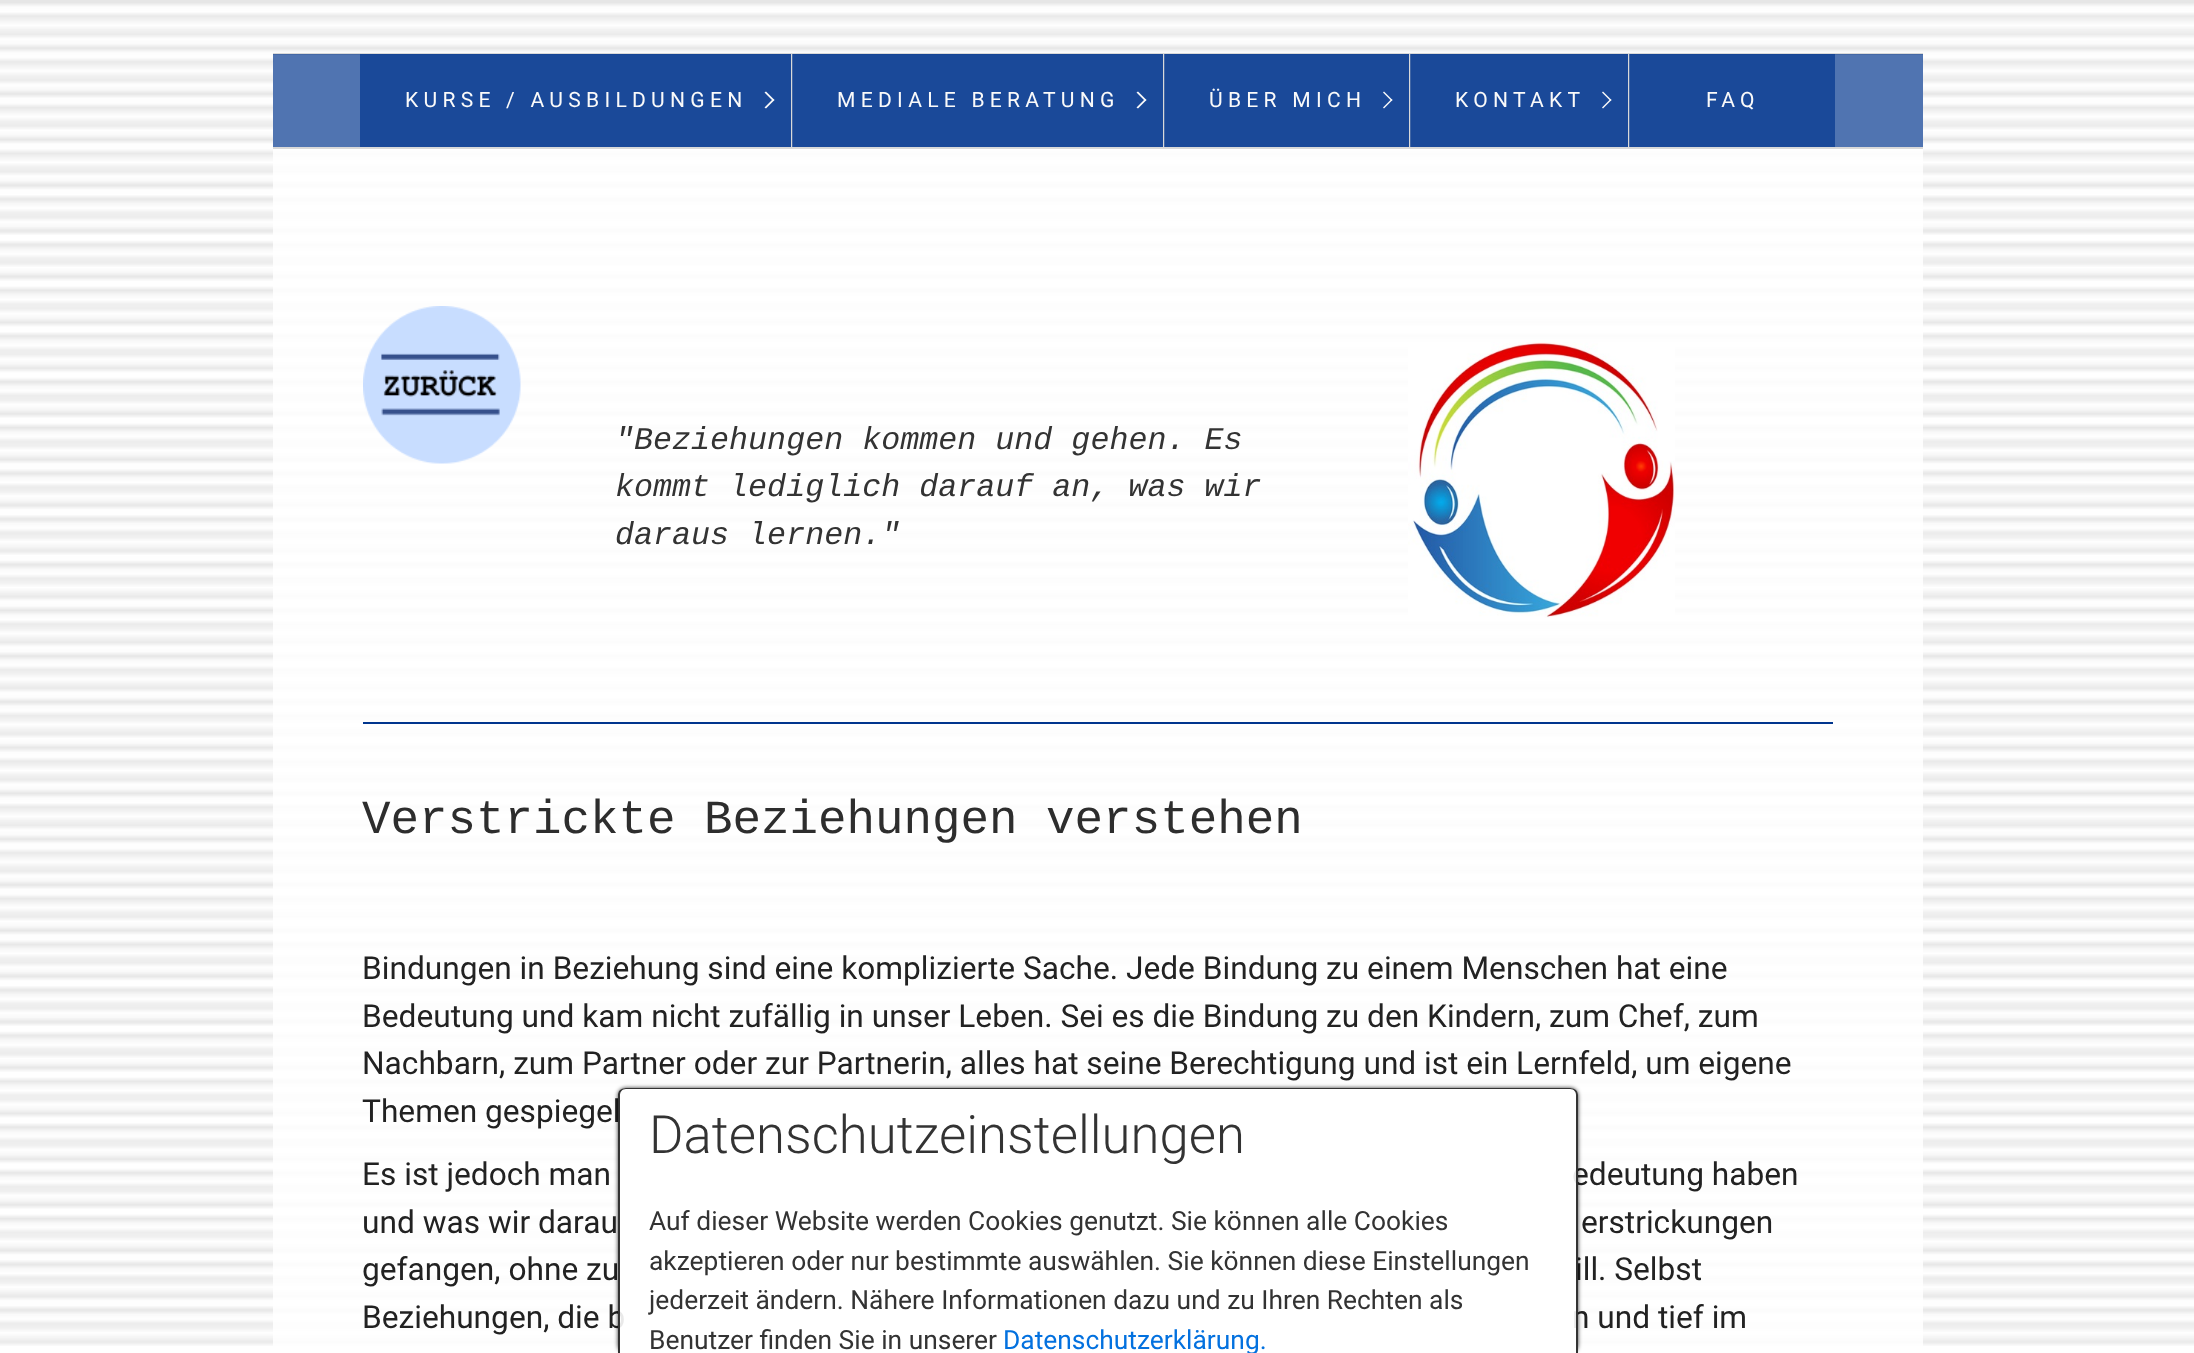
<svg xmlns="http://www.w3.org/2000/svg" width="2194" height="1353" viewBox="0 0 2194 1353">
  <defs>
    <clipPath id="clip1"><path d="M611 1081H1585V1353H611ZM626 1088H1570C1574.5 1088 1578 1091.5 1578 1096V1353H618V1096C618 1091.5 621.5 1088 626 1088Z" clip-rule="evenodd"/></clipPath>
  </defs>
  <rect width="100%" height="100%" fill="rgb(255,255,255)"/>
  <image x="0" y="0" width="2194" height="1346" href="pic1.png"/>
  <path d="M285 53H1911C1917.5 53 1923 58.5 1923 65V147H273V65C273 58.5 278.5 53 285 53Z" fill="rgb(255,255,255)"/>
  <rect x="273" y="53" width="1650" height="2" fill="rgb(217,217,217)"/>
  <rect x="273" y="54" width="1650" height="93" fill="rgba(1,54,142,0.69)"/>
  <rect x="360" y="54" width="431" height="93" fill="rgba(1,54,142,0.69)"/>
  <text x="405" y="107" font-family="Roboto" font-size="21.1" letter-spacing="5.25" fill="rgb(250,250,250)">KURSE / AUSBILDUNGEN</text>
  <path d="M766 91.5L774.5 100L773 101L764.5 92.5Z" fill="rgb(250,250,250)"/>
  <path d="M773 99L774.5 100L766 108.5L764.5 107.5Z" fill="rgb(250,250,250)"/>
  <rect x="791" y="54" width="2" height="93" fill="rgb(217,217,217)"/>
  <rect x="792" y="54" width="371" height="93" fill="rgba(1,54,142,0.69)"/>
  <text x="837" y="107" font-family="Roboto" font-size="21.1" letter-spacing="5.25" fill="rgb(250,250,250)">MEDIALE BERATUNG</text>
  <path d="M1138 91.5L1146.5 100L1145 101L1136.5 92.5Z" fill="rgb(250,250,250)"/>
  <path d="M1145 99L1146.5 100L1138 108.5L1136.5 107.5Z" fill="rgb(250,250,250)"/>
  <rect x="1163" y="54" width="2" height="93" fill="rgb(217,217,217)"/>
  <rect x="1164" y="54" width="245" height="93" fill="rgba(1,54,142,0.69)"/>
  <text x="1209" y="107" font-family="Roboto" font-size="21.1" letter-spacing="5.25" fill="rgb(250,250,250)">ÜBER MICH</text>
  <path d="M1384 91.5L1392.5 100L1391.5 101L1383 92.5Z" fill="rgb(250,250,250)"/>
  <path d="M1391.5 99L1392.5 100L1384 108.5L1383 107.5Z" fill="rgb(250,250,250)"/>
  <rect x="1409" y="54" width="2" height="93" fill="rgb(217,217,217)"/>
  <rect x="1410" y="54" width="218" height="93" fill="rgba(1,54,142,0.69)"/>
  <text x="1455" y="107" font-family="Roboto" font-size="21.1" letter-spacing="5.25" fill="rgb(250,250,250)">KONTAKT</text>
  <path d="M1603 91.5L1611.5 100L1610.5 101L1602 92.5Z" fill="rgb(250,250,250)"/>
  <path d="M1610.5 99L1611.5 100L1603 108.5L1602 107.5Z" fill="rgb(250,250,250)"/>
  <rect x="1628" y="54" width="2" height="93" fill="rgb(217,217,217)"/>
  <rect x="1629" y="54" width="206" height="93" fill="rgba(1,54,142,0.69)"/>
  <text x="1706" y="107" font-family="Roboto" font-size="21.1" letter-spacing="5.25" fill="rgb(250,250,250)">FAQ</text>
  <rect x="273" y="149" width="1650" height="1197" fill="rgba(255,255,255,0.85)"/>
  <rect x="273" y="147" width="1650" height="2" fill="rgb(217,217,217)"/>
  <image x="363" y="306" width="158" height="158" href="pic2.png"/>
  <g font-family="Liberation Mono" font-size="31.7" font-style="italic" fill="rgb(51,51,51)">
    <text>
      <tspan x="615" y="449">"Beziehungen kommen und gehen. Es</tspan>
      <tspan x="615" y="496">kommt lediglich darauf an, was wir</tspan>
      <tspan x="615" y="544">daraus lernen."</tspan>
    </text>
  </g>
  <image x="1408" y="342" width="267" height="276" href="pic3.png"/>
  <rect x="363" y="722" width="1470" height="2" fill="rgb(1,54,142)"/>
  <text x="362" y="833" font-family="Liberation Mono" font-size="47.5" fill="rgb(45,45,45)">Verstrickte Beziehungen verstehen</text>
  <g font-family="Roboto" font-size="31.7" fill="rgb(34,34,34)">
    <text>
      <tspan x="362" y="979">Bindungen in Beziehung sind eine komplizierte Sache. Jede Bindung zu einem Menschen hat eine</tspan>
      <tspan x="362" y="1027">Bedeutung und kam nicht zufällig in unser Leben. Sei es die Bindung zu den Kindern, zum Chef, zum</tspan>
      <tspan x="362" y="1074">Nachbarn, zum Partner oder zur Partnerin, alles hat seine Berechtigung und ist ein Lernfeld, um eigene</tspan>
      <tspan x="362" y="1122">Themen gespiegel</tspan>
      <tspan x="362" y="1185">Es ist jedoch man</tspan>
    </text>
    <text x="1572" y="1185">edeutung haben</text>
    <text x="362" y="1233">und was wir darau</text>
    <text x="1581" y="1233">erstrickungen</text>
    <text x="362" y="1280">gefangen, ohne zu</text>
    <text x="1575" y="1280">ill. Selbst</text>
    <text x="362" y="1328">Beziehungen, die b</text>
    <text x="1572" y="1328">n und tief im</text>
  </g>
  <g clip-path="url(#clip1)">
    <rect x="618" y="1088" width="960" height="265" rx="8" fill="rgba(0,0,0,0.8)" filter="blur(2px)"/>
  </g>
  <path d="M626 1088H1570C1574.5 1088 1578 1091.5 1578 1096V1353H618V1096C618 1091.5 621.5 1088 626 1088Z" fill="rgba(255,255,255,0.9)"/>
  <path d="M626 1088H1570C1575 1088 1578 1091 1578 1095V1353H618V1095C618 1091 621 1088 626 1088ZM626 1089H1570C1574 1089 1576 1092 1576 1095V1353H620V1095C620 1092 622 1089 626 1089Z" fill="rgb(51,51,51)" fill-rule="evenodd"/>
  <text x="649" y="1153" font-family="Roboto" font-size="52.75" font-weight="300" fill="rgb(51,51,51)">Datenschutzeinstellungen</text>
  <g font-family="Roboto" font-size="26.4" fill="rgb(51,51,51)">
    <text>
      <tspan x="649" y="1230">Auf dieser Website werden Cookies genutzt. Sie können alle Cookies</tspan>
      <tspan x="649" y="1270">akzeptieren oder nur bestimmte auswählen. Sie können diese Einstellungen</tspan>
      <tspan x="649" y="1309">jederzeit ändern. Nähere Informationen dazu und zu Ihren Rechten als</tspan>
      <tspan x="649" y="1349">Benutzer finden Sie in unserer</tspan>
    </text>
  </g>
  <text x="1003" y="1349" font-family="Roboto" font-size="26.4" fill="rgb(3,113,223)">Datenschutzerklärung.</text>
</svg>
